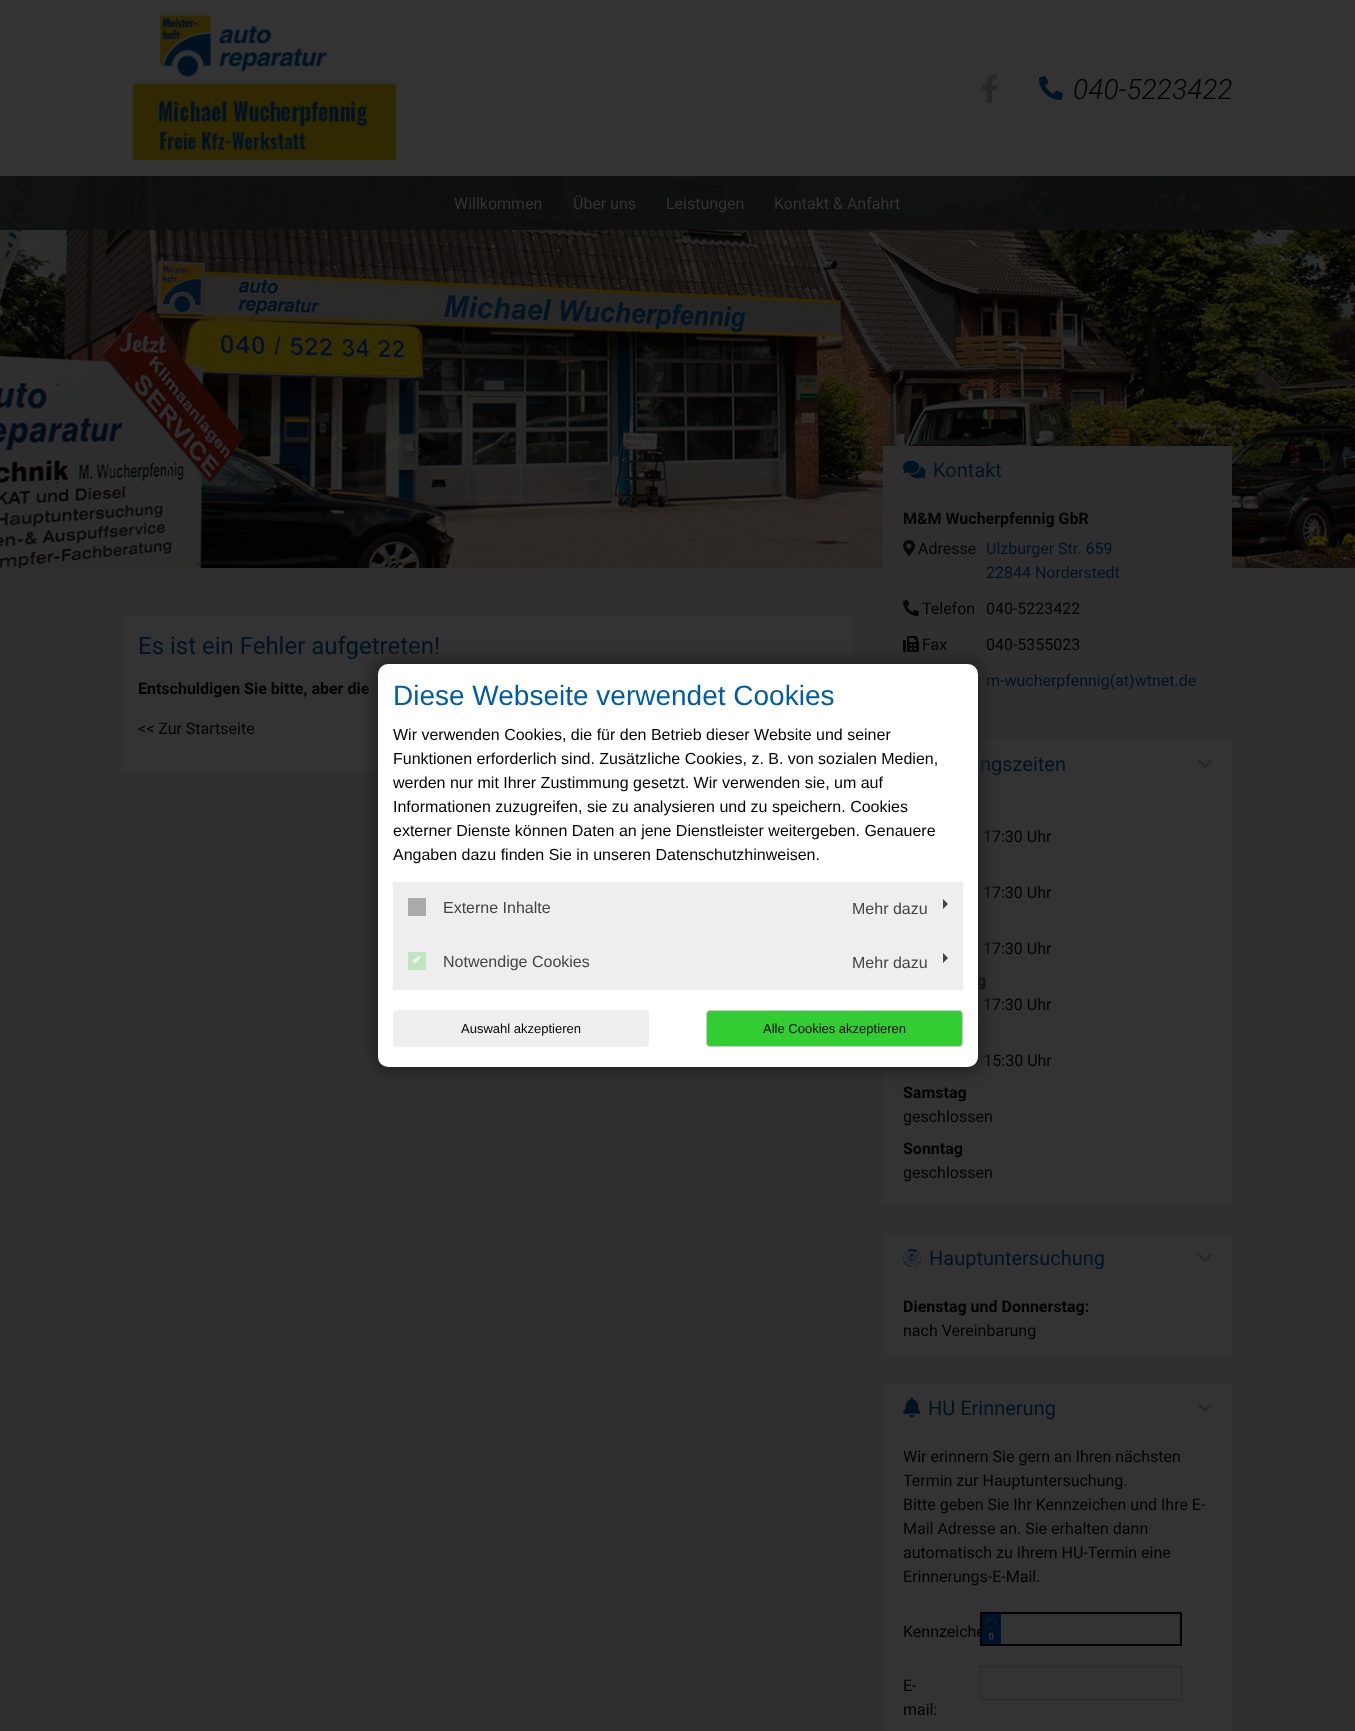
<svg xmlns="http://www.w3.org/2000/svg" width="1355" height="1731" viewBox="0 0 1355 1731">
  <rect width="100%" height="100%" fill="rgb(48,48,48)"/>
  <rect x="0" y="0" width="1355" height="176" fill="rgb(51,51,51)"/>
  <image x="132" y="15" width="264" height="145" href="pic1.png"/>
  <image x="982" y="74" width="16" height="29" href="pic2.png"/>
  <image x="1039" y="76" width="24" height="24" href="pic3.png"/>
  <text x="1073" y="99" font-family="Roboto" font-size="28" font-weight="300" font-style="italic" fill="rgb(3,3,3)">040-5223422</text>
  <image x="0" y="176" width="1355" height="392" href="pic4.png"/>
  <rect x="0" y="176" width="1355" height="54" fill="rgba(13,14,14,0.9)"/>
  <g font-family="Roboto" font-size="16" fill="rgb(51,51,51)">
    <text x="454" y="209">Willkommen</text>
    <text x="573" y="209">Über uns</text>
    <text x="666" y="209">Leistungen</text>
    <text x="774" y="209">Kontakt &amp; Anfahrt</text>
  </g>
  <rect x="123" y="616" width="730" height="155" fill="rgb(51,51,51)"/>
  <text x="138" y="654" font-family="Roboto" font-size="24" fill="rgb(0,19,33)">Es ist ein Fehler aufgetreten!</text>
  <text x="138" y="694" font-family="Roboto" font-size="16" font-weight="bold" fill="rgb(3,3,3)">Entschuldigen Sie bitte, aber die</text>
  <text x="138" y="734" font-family="Roboto" font-size="16" fill="rgb(3,3,3)">&lt;&lt; Zur Startseite</text>
  <rect x="883" y="446" width="349" height="122" fill="rgb(47,47,47)"/>
  <image x="903" y="460" width="23" height="19" href="pic5.png"/>
  <text x="933" y="477" font-family="Roboto" font-size="20" fill="rgb(0,19,33)">Kontakt</text>
  <text x="903" y="524" font-family="Roboto" font-size="16" font-weight="bold" fill="rgb(3,3,3)">M&amp;M Wucherpfennig GbR</text>
  <image x="903" y="540" width="12" height="16" href="pic6.png"/>
  <text x="918" y="554" font-family="Roboto" font-size="16" fill="rgb(3,3,3)">Adresse</text>
  <g font-family="Roboto" font-size="16" fill="rgb(0,19,33)">
    <text>
      <tspan x="986" y="554">Ulzburger Str. 659</tspan>
      <tspan x="986" y="578">22844 Norderstedt</tspan>
    </text>
  </g>
  <image x="903" y="600" width="16" height="16" href="pic7.png"/>
  <g font-family="Roboto" font-size="16" fill="rgb(3,3,3)">
    <text x="922" y="614">Telefon</text>
    <text x="986" y="614">040-5223422</text>
  </g>
  <image x="903" y="636" width="16" height="16" href="pic8.png"/>
  <g font-family="Roboto" font-size="16" fill="rgb(3,3,3)">
    <text x="922" y="650">Fax</text>
    <text x="986" y="650">040-5355023</text>
  </g>
  <text x="986" y="686" font-family="Roboto" font-size="16" fill="rgb(0,19,33)">m-wucherpfennig(at)wtnet.de</text>
  <rect x="883" y="740" width="349" height="464" fill="rgb(51,51,51)"/>
  <text x="980" y="771" font-family="Roboto" font-size="20" fill="rgb(0,19,33)">ngszeiten</text>
  <image x="1198" y="760" width="14" height="8" href="pic9.png"/>
  <g font-family="Roboto" font-size="16" fill="rgb(3,3,3)">
    <text x="983" y="842">17:30 Uhr</text>
    <text x="983" y="898">17:30 Uhr</text>
    <text x="983" y="954">17:30 Uhr</text>
  </g>
  <text x="977" y="986" font-family="Roboto" font-size="16" font-weight="bold" fill="rgb(3,3,3)">g</text>
  <g font-family="Roboto" font-size="16" fill="rgb(3,3,3)">
    <text x="983" y="1010">17:30 Uhr</text>
    <text x="975" y="1066">- 15:30 Uhr</text>
  </g>
  <text x="903" y="1098" font-family="Roboto" font-size="16" font-weight="bold" fill="rgb(3,3,3)">Samstag</text>
  <text x="903" y="1122" font-family="Roboto" font-size="16" fill="rgb(3,3,3)">geschlossen</text>
  <text x="903" y="1154" font-family="Roboto" font-size="16" font-weight="bold" fill="rgb(3,3,3)">Sonntag</text>
  <text x="903" y="1178" font-family="Roboto" font-size="16" fill="rgb(3,3,3)">geschlossen</text>
  <rect x="883" y="1234" width="349" height="120" fill="rgb(51,51,51)"/>
  <image x="903" y="1249" width="18" height="18" href="pic10.png"/>
  <text x="929" y="1265" font-family="Roboto" font-size="20" fill="rgb(0,19,33)">Hauptuntersuchung</text>
  <image x="1198" y="1254" width="14" height="8" href="pic9.png"/>
  <text x="903" y="1312" font-family="Roboto" font-size="16" font-weight="bold" fill="rgb(3,3,3)">Dienstag und Donnerstag:</text>
  <text x="903" y="1336" font-family="Roboto" font-size="16" fill="rgb(3,3,3)">nach Vereinbarung</text>
  <rect x="883" y="1384" width="349" height="347" fill="rgb(51,51,51)"/>
  <image x="903" y="1397" width="18" height="21" href="pic11.png"/>
  <text x="928" y="1415" font-family="Roboto" font-size="20" fill="rgb(0,19,33)">HU Erinnerung</text>
  <image x="1198" y="1404" width="14" height="8" href="pic9.png"/>
  <g font-family="Roboto" font-size="16" fill="rgb(3,3,3)">
    <text>
      <tspan x="903" y="1462">Wir erinnern Sie gern an Ihren nächsten</tspan>
      <tspan x="903" y="1486">Termin zur Hauptuntersuchung.</tspan>
      <tspan x="903" y="1510">Bitte geben Sie Ihr Kennzeichen und Ihre E-</tspan>
      <tspan x="903" y="1534">Mail Adresse an. Sie erhalten dann</tspan>
      <tspan x="903" y="1558">automatisch zu Ihrem HU-Termin eine</tspan>
      <tspan x="903" y="1582">Erinnerungs-E-Mail.</tspan>
    </text>
    <text x="903" y="1637">Kennzeiche</text>
  </g>
  <image x="982" y="1614" width="19" height="30" href="pic12.png"/>
  <rect x="982" y="1614" width="198" height="1" fill="rgba(0,0,0,0.07)"/>
  <rect x="981" y="1613" width="200" height="32" fill="none" stroke="rgb(0,0,0)" stroke-width="2"/>
  <g font-family="Roboto" font-size="16" fill="rgb(3,3,3)">
    <text>
      <tspan x="903" y="1691">E-</tspan>
      <tspan x="903" y="1715">mail:</tspan>
    </text>
  </g>
  <rect x="981" y="1667" width="200" height="1" fill="rgb(47,47,47)"/>
  <rect x="980.5" y="1666.5" width="201" height="33" fill="none" stroke="rgb(41,41,41)"/>
  <rect x="373" y="659" width="610" height="413" rx="15" fill="rgb(34,34,34)" filter="blur(7.5px)"/>
  <rect x="378" y="664" width="600" height="403" rx="10" fill="rgb(255,255,255)"/>
  <text x="393" y="705" font-family="Liberation Sans" font-size="28" fill="rgb(0,93,165)">Diese Webseite verwendet Cookies</text>
  <g font-family="Liberation Sans" font-size="16" fill="rgb(3,3,3)">
    <text>
      <tspan x="393" y="740">Wir verwenden Cookies, die für den Betrieb dieser Website und seiner</tspan>
      <tspan x="393" y="764">Funktionen erforderlich sind. Zusätzliche Cookies, z. B. von sozialen Medien,</tspan>
      <tspan x="393" y="788">werden nur mit Ihrer Zustimmung gesetzt. Wir verwenden sie, um auf</tspan>
      <tspan x="393" y="812">Informationen zuzugreifen, sie zu analysieren und zu speichern. Cookies</tspan>
      <tspan x="393" y="836">externer Dienste können Daten an jene Dienstleister weitergeben. Genauere</tspan>
      <tspan x="393" y="860">Angaben dazu finden Sie in unseren Datenschutzhinweisen.</tspan>
    </text>
  </g>
  <rect x="393" y="882" width="570" height="108" fill="rgb(238,238,238)"/>
  <rect x="408" y="898" width="18" height="18" fill="rgb(170,170,170)"/>
  <g font-family="Liberation Sans" font-size="16" fill="rgb(68,68,68)">
    <text x="443" y="913">Externe Inhalte</text>
    <text x="852" y="914">Mehr dazu</text>
  </g>
  <path d="M943 909V899L948 904Z" fill="rgb(68,68,68)"/>
  <rect x="408" y="952" width="18" height="18" fill="rgb(191,230,191)"/>
  <path d="M418.5 955.5L420.5 957.5L415 963.5L413 961.5Z" fill="rgb(242,242,242)"/>
  <path d="M414.5 958.5L417 961.5L415 963.5L412.5 960.5Z" fill="rgb(242,242,242)"/>
  <g font-family="Liberation Sans" font-size="16" fill="rgb(68,68,68)">
    <text x="443" y="967">Notwendige Cookies</text>
    <text x="852" y="968">Mehr dazu</text>
  </g>
  <path d="M943 963V953L948 958Z" fill="rgb(68,68,68)"/>
  <rect x="393.5" y="1010.5" width="255" height="36" rx="3.5" fill="rgb(238,238,238)" stroke="rgb(238,238,238)"/>
  <text x="461" y="1033" font-family="Liberation Sans" font-size="13" fill="rgb(3,3,3)">Auswahl akzeptieren</text>
  <rect x="706.5" y="1010.5" width="256" height="36" rx="3.5" fill="rgb(50,205,50)" stroke="rgb(204,204,204)"/>
  <text x="763" y="1033" font-family="Liberation Sans" font-size="13" fill="rgb(3,3,3)">Alle Cookies akzeptieren</text>
</svg>
